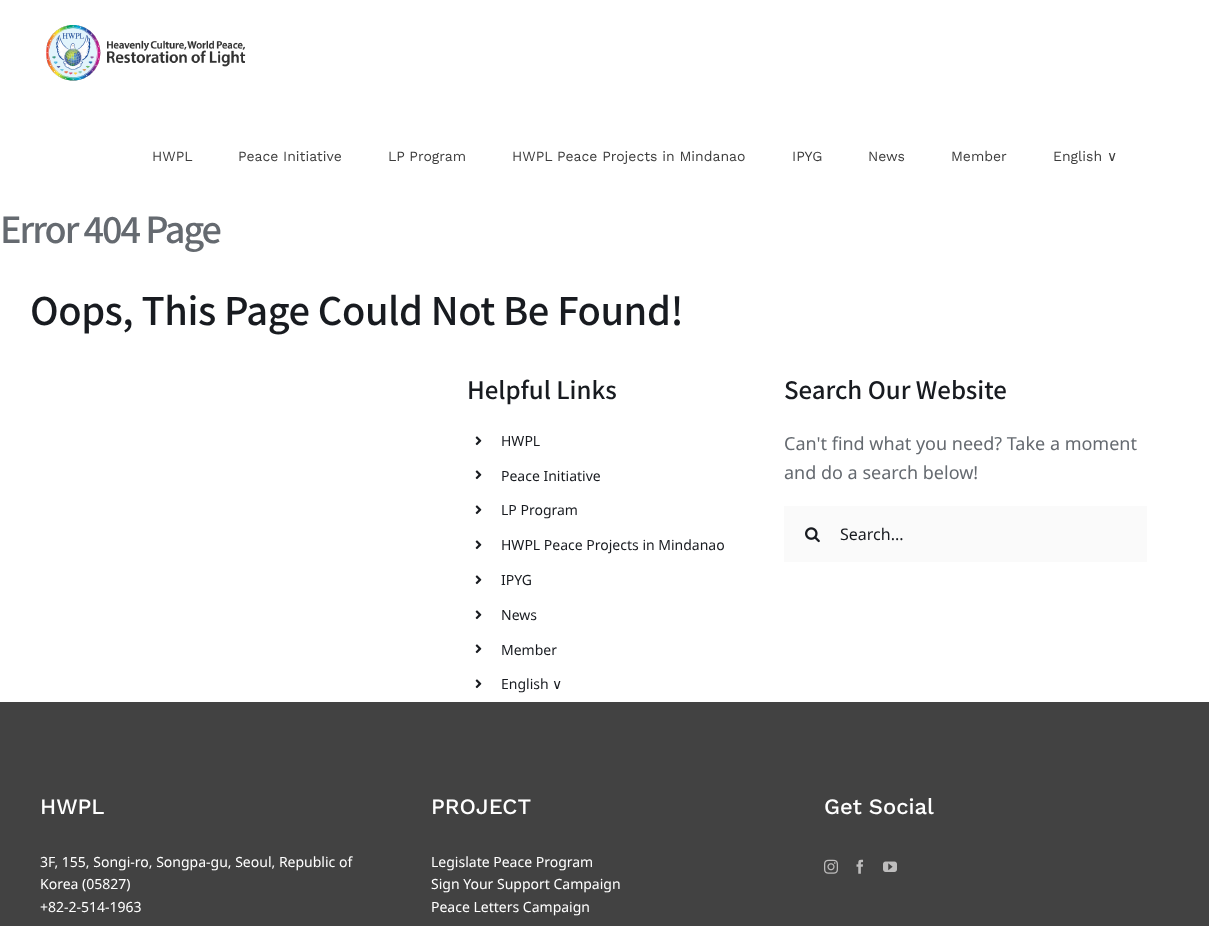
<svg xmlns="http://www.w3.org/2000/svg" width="1209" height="926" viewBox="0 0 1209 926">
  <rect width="100%" height="100%" fill="rgb(255,255,255)"/>
  <image x="46" y="25" width="200" height="56" href="pic1.png"/>
  <g font-family="Work Sans" font-size="14" fill="rgb(61,61,61)">
    <text x="152" y="161">HWPL</text>
    <text x="238" y="161">Peace Initiative</text>
    <text x="388" y="161">LP Program</text>
    <text x="512" y="161">HWPL Peace Projects in Mindanao</text>
    <text x="792" y="161">IPYG</text>
    <text x="868" y="161">News</text>
    <text x="951" y="161">Member</text>
    <text x="1053" y="161">English</text>
  </g>
  <text x="1107" y="161" font-family="DejaVu Sans" font-size="14" fill="rgb(61,61,61)">∨</text>
  <text x="0" y="243" font-family="Noto Sans KR" font-size="36" font-weight="100" letter-spacing="-2" fill="rgb(101,106,112)">Error 404 Page</text>
  <text x="30" y="325" font-family="Noto Sans KR" font-size="38" font-weight="100" letter-spacing="-0.4" fill="rgb(24,27,32)">Oops, This Page Could Not Be Found!</text>
  <text x="467" y="399" font-family="Noto Sans KR" font-size="24" font-weight="100" fill="rgb(24,27,32)">Helpful Links</text>
  <image x="475" y="436" width="7" height="10" href="pic2.png"/>
  <text x="501" y="446" font-family="Noto Sans" font-size="14" fill="rgb(24,27,32)">HWPL</text>
  <image x="475" y="470" width="7" height="10" href="pic2.png"/>
  <text x="501" y="481" font-family="Noto Sans" font-size="14" fill="rgb(24,27,32)">Peace Initiative</text>
  <image x="475" y="505" width="7" height="10" href="pic2.png"/>
  <text x="501" y="515" font-family="Noto Sans" font-size="14" fill="rgb(24,27,32)">LP Program</text>
  <image x="475" y="540" width="7" height="10" href="pic2.png"/>
  <text x="501" y="550" font-family="Noto Sans" font-size="14" fill="rgb(24,27,32)">HWPL Peace Projects in Mindanao</text>
  <image x="475" y="575" width="7" height="10" href="pic2.png"/>
  <text x="501" y="585" font-family="Noto Sans" font-size="14" fill="rgb(24,27,32)">IPYG</text>
  <image x="475" y="610" width="7" height="10" href="pic2.png"/>
  <text x="501" y="620" font-family="Noto Sans" font-size="14" fill="rgb(24,27,32)">News</text>
  <image x="475" y="644" width="7" height="10" href="pic2.png"/>
  <text x="501" y="655" font-family="Noto Sans" font-size="14" fill="rgb(24,27,32)">Member</text>
  <image x="475" y="679" width="7" height="10" href="pic2.png"/>
  <text x="501" y="689" font-family="Noto Sans" font-size="14" fill="rgb(24,27,32)">English</text>
  <text x="552" y="689" font-family="DejaVu Sans" font-size="14" fill="rgb(24,27,32)">∨</text>
  <text x="784" y="399" font-family="Noto Sans KR" font-size="24" font-weight="100" fill="rgb(24,27,32)">Search Our Website</text>
  <g font-family="Noto Sans" font-size="18" fill="rgb(101,106,112)">
    <text>
      <tspan x="784" y="450">Can't find what you need? Take a moment</tspan>
      <tspan x="784" y="479">and do a search below!</tspan>
    </text>
  </g>
  <rect x="784" y="506" width="363" height="56" fill="rgb(250,250,250)"/>
  <image x="805" y="527" width="15" height="16" href="pic3.png"/>
  <text x="840" y="540" font-family="Noto Sans" font-size="16" fill="rgb(24,27,32)">Search...</text>
  <rect x="0" y="702" width="1209" height="224" fill="rgb(66,66,66)"/>
  <text x="40" y="814" font-family="Work Sans" font-size="22" font-weight="500" fill="rgb(255,255,255)">HWPL</text>
  <g font-family="Noto Sans" font-size="14" fill="rgb(255,255,255)">
    <text>
      <tspan x="40" y="867">3F, 155, Songi-ro, Songpa-gu, Seoul, Republic of</tspan>
      <tspan x="40" y="889">Korea (05827)</tspan>
      <tspan x="40" y="912">+82-2-514-1963</tspan>
    </text>
  </g>
  <text x="431" y="814" font-family="Work Sans" font-size="22" font-weight="500" fill="rgb(255,255,255)">PROJECT</text>
  <g font-family="Noto Sans" font-size="14" fill="rgb(255,255,255)">
    <text>
      <tspan x="431" y="867">Legislate Peace Program</tspan>
      <tspan x="431" y="889">Sign Your Support Campaign</tspan>
      <tspan x="431" y="912">Peace Letters Campaign</tspan>
    </text>
  </g>
  <text x="824" y="814" font-family="Work Sans" font-size="22" font-weight="500" fill="rgb(255,255,255)">Get Social</text>
  <image x="824" y="859" width="14" height="15" href="pic4.png"/>
  <image x="856" y="859" width="8" height="15" href="pic5.png"/>
  <image x="883" y="861" width="14" height="11" href="pic6.png"/>
</svg>
